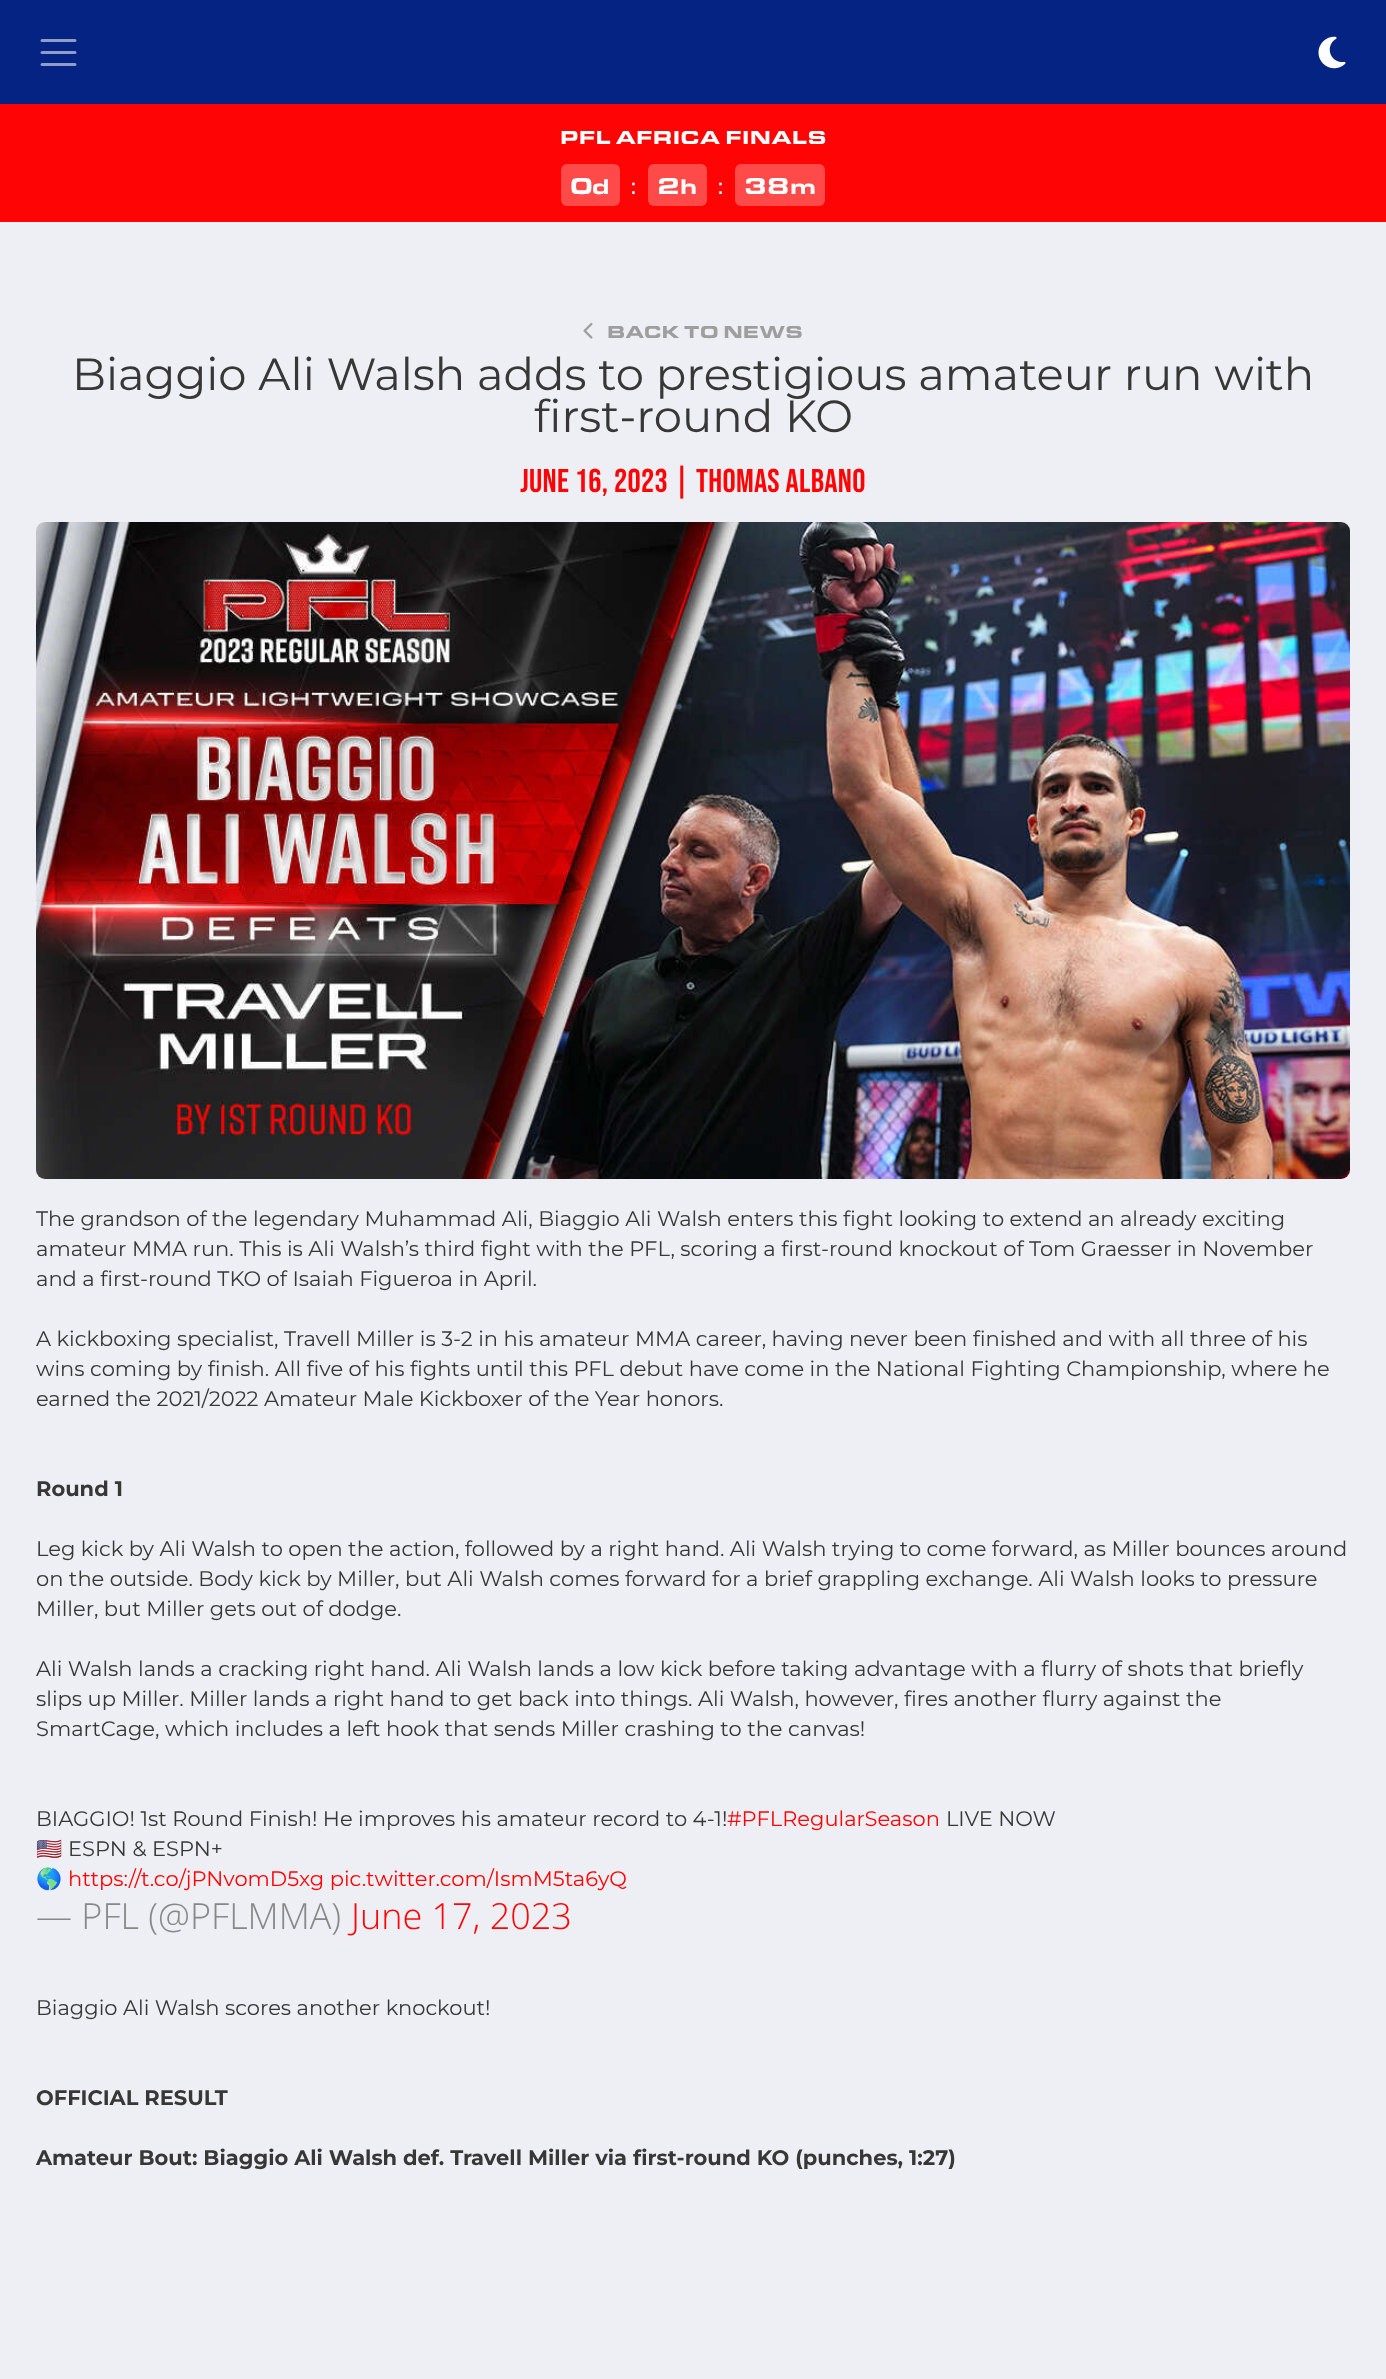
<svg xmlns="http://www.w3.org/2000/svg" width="1386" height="2379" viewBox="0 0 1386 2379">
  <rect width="100%" height="100%" fill="rgb(255,4,4)"/>
  <rect x="0" y="0" width="1386" height="104" fill="rgb(5,35,131)"/>
  <path d="M42 40.5H75M42 52.5H75M42 64.5H75" fill="none" stroke="rgb(143,156,199)" stroke-width="3" stroke-linecap="round"/>
  <image x="1318" y="36" width="28" height="33" href="pic1.png"/>
  <text x="560" y="144" font-family="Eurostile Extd" font-size="19.5" font-weight="900" letter-spacing="0.25" fill="rgb(255,255,255)">PFL AFRICA FINALS</text>
  <rect x="561" y="164" width="59" height="42" rx="6" fill="rgb(255,74,74)"/>
  <text x="570" y="194" font-family="Eurostile Extd" font-size="24" font-weight="900" fill="rgb(255,255,255)">0</text>
  <text x="592" y="194" font-family="Eurostile Extd" font-size="22" font-weight="900" fill="rgb(255,255,255)">d</text>
  <text x="630" y="194" font-family="Eurostile Extd" font-size="24" fill="rgb(255,255,255)">:</text>
  <rect x="648" y="164" width="59" height="42" rx="6" fill="rgb(255,74,74)"/>
  <text x="657" y="194" font-family="Eurostile Extd" font-size="24" font-weight="900" fill="rgb(255,255,255)">2</text>
  <text x="680" y="194" font-family="Eurostile Extd" font-size="22" font-weight="900" fill="rgb(255,255,255)">h</text>
  <text x="717" y="194" font-family="Eurostile Extd" font-size="24" fill="rgb(255,255,255)">:</text>
  <rect x="735" y="164" width="90" height="42" rx="6" fill="rgb(255,74,74)"/>
  <text x="744" y="194" font-family="Eurostile Extd" font-size="24" font-weight="900" fill="rgb(255,255,255)">38</text>
  <text x="790" y="194" font-family="Eurostile Extd" font-size="22" font-weight="900" fill="rgb(255,255,255)">m</text>
  <rect x="0" y="222" width="1386" height="2157" fill="rgb(237,239,244)"/>
  <image x="583" y="322" width="10" height="17" href="pic2.png"/>
  <text x="607" y="338" font-family="Eurostile Extd" font-size="18" font-weight="900" fill="rgb(158,158,158)">BACK TO NEWS</text>
  <g font-family="Montserrat" font-size="45" fill="rgb(55,55,55)">
    <text x="72" y="390">Biaggio Ali Walsh adds to prestigious amateur run with</text>
    <text x="534" y="432">first-round KO</text>
  </g>
  <text x="520" y="492" font-family="Bebas Neue" font-size="33" letter-spacing="0.3" fill="rgb(255,4,4)">JUNE 16, 2023 | THOMAS ALBANO</text>
  <image x="36" y="522" width="1314" height="657" href="pic3.png"/>
  <g font-family="Montserrat" font-size="21" fill="rgb(55,55,55)">
    <text>
      <tspan x="36" y="1226">The grandson of the legendary Muhammad Ali, Biaggio Ali Walsh enters this fight looking to extend an already exciting</tspan>
      <tspan x="36" y="1256">amateur MMA run. This is Ali Walsh’s third fight with the PFL, scoring a first-round knockout of Tom Graesser in November</tspan>
      <tspan x="36" y="1286">and a first-round TKO of Isaiah Figueroa in April.</tspan>
    </text>
    <text>
      <tspan x="36" y="1346">A kickboxing specialist, Travell Miller is 3-2 in his amateur MMA career, having never been finished and with all three of his</tspan>
      <tspan x="36" y="1376">wins coming by finish. All five of his fights until this PFL debut have come in the National Fighting Championship, where he</tspan>
      <tspan x="36" y="1406">earned the 2021/2022 Amateur Male Kickboxer of the Year honors.</tspan>
    </text>
  </g>
  <text x="36" y="1496" font-family="Montserrat" font-size="21" font-weight="bold" fill="rgb(55,55,55)">Round 1</text>
  <g font-family="Montserrat" font-size="21" fill="rgb(55,55,55)">
    <text>
      <tspan x="36" y="1556">Leg kick by Ali Walsh to open the action, followed by a right hand. Ali Walsh trying to come forward, as Miller bounces around</tspan>
      <tspan x="36" y="1586">on the outside. Body kick by Miller, but Ali Walsh comes forward for a brief grappling exchange. Ali Walsh looks to pressure</tspan>
      <tspan x="36" y="1616">Miller, but Miller gets out of dodge.</tspan>
    </text>
    <text>
      <tspan x="36" y="1676">Ali Walsh lands a cracking right hand. Ali Walsh lands a low kick before taking advantage with a flurry of shots that briefly</tspan>
      <tspan x="36" y="1706">slips up Miller. Miller lands a right hand to get back into things. Ali Walsh, however, fires another flurry against the</tspan>
      <tspan x="36" y="1736">SmartCage, which includes a left hook that sends Miller crashing to the canvas!</tspan>
    </text>
    <text x="36" y="1826">BIAGGIO! 1st Round Finish! He improves his amateur record to 4-1!</text>
  </g>
  <text x="727" y="1826" font-family="Montserrat" font-size="21" fill="rgb(255,4,4)">#PFLRegularSeason</text>
  <text x="946" y="1826" font-family="Montserrat" font-size="21" fill="rgb(55,55,55)">LIVE NOW</text>
  <text x="36" y="1856" font-family="Noto Color Emoji" font-size="21" fill="rgb(55,55,55)">🇺🇸</text>
  <text x="68" y="1856" font-family="Montserrat" font-size="21" fill="rgb(55,55,55)">ESPN &amp; ESPN+</text>
  <text x="36" y="1886" font-family="Noto Color Emoji" font-size="21" fill="rgb(55,55,55)">🌎</text>
  <text x="68" y="1886" font-family="Montserrat" font-size="21" fill="rgb(255,4,4)">https://t.co/jPNvomD5xg pic.twitter.com/IsmM5ta6yQ</text>
  <text x="36" y="1929" font-family="Open Sans" font-size="36" font-weight="300" fill="rgb(136,136,136)">— PFL (@PFLMMA)</text>
  <text x="351" y="1929" font-family="Open Sans" font-size="36" font-weight="300" fill="rgb(255,4,4)">June 17, 2023</text>
  <text x="36" y="2015" font-family="Montserrat" font-size="21" fill="rgb(55,55,55)">Biaggio Ali Walsh scores another knockout!</text>
  <g font-family="Montserrat" font-size="21" font-weight="bold" fill="rgb(55,55,55)">
    <text x="36" y="2105">OFFICIAL RESULT</text>
    <text x="36" y="2165">Amateur Bout: Biaggio Ali Walsh def. Travell Miller via first-round KO (punches, 1:27)</text>
  </g>
</svg>
